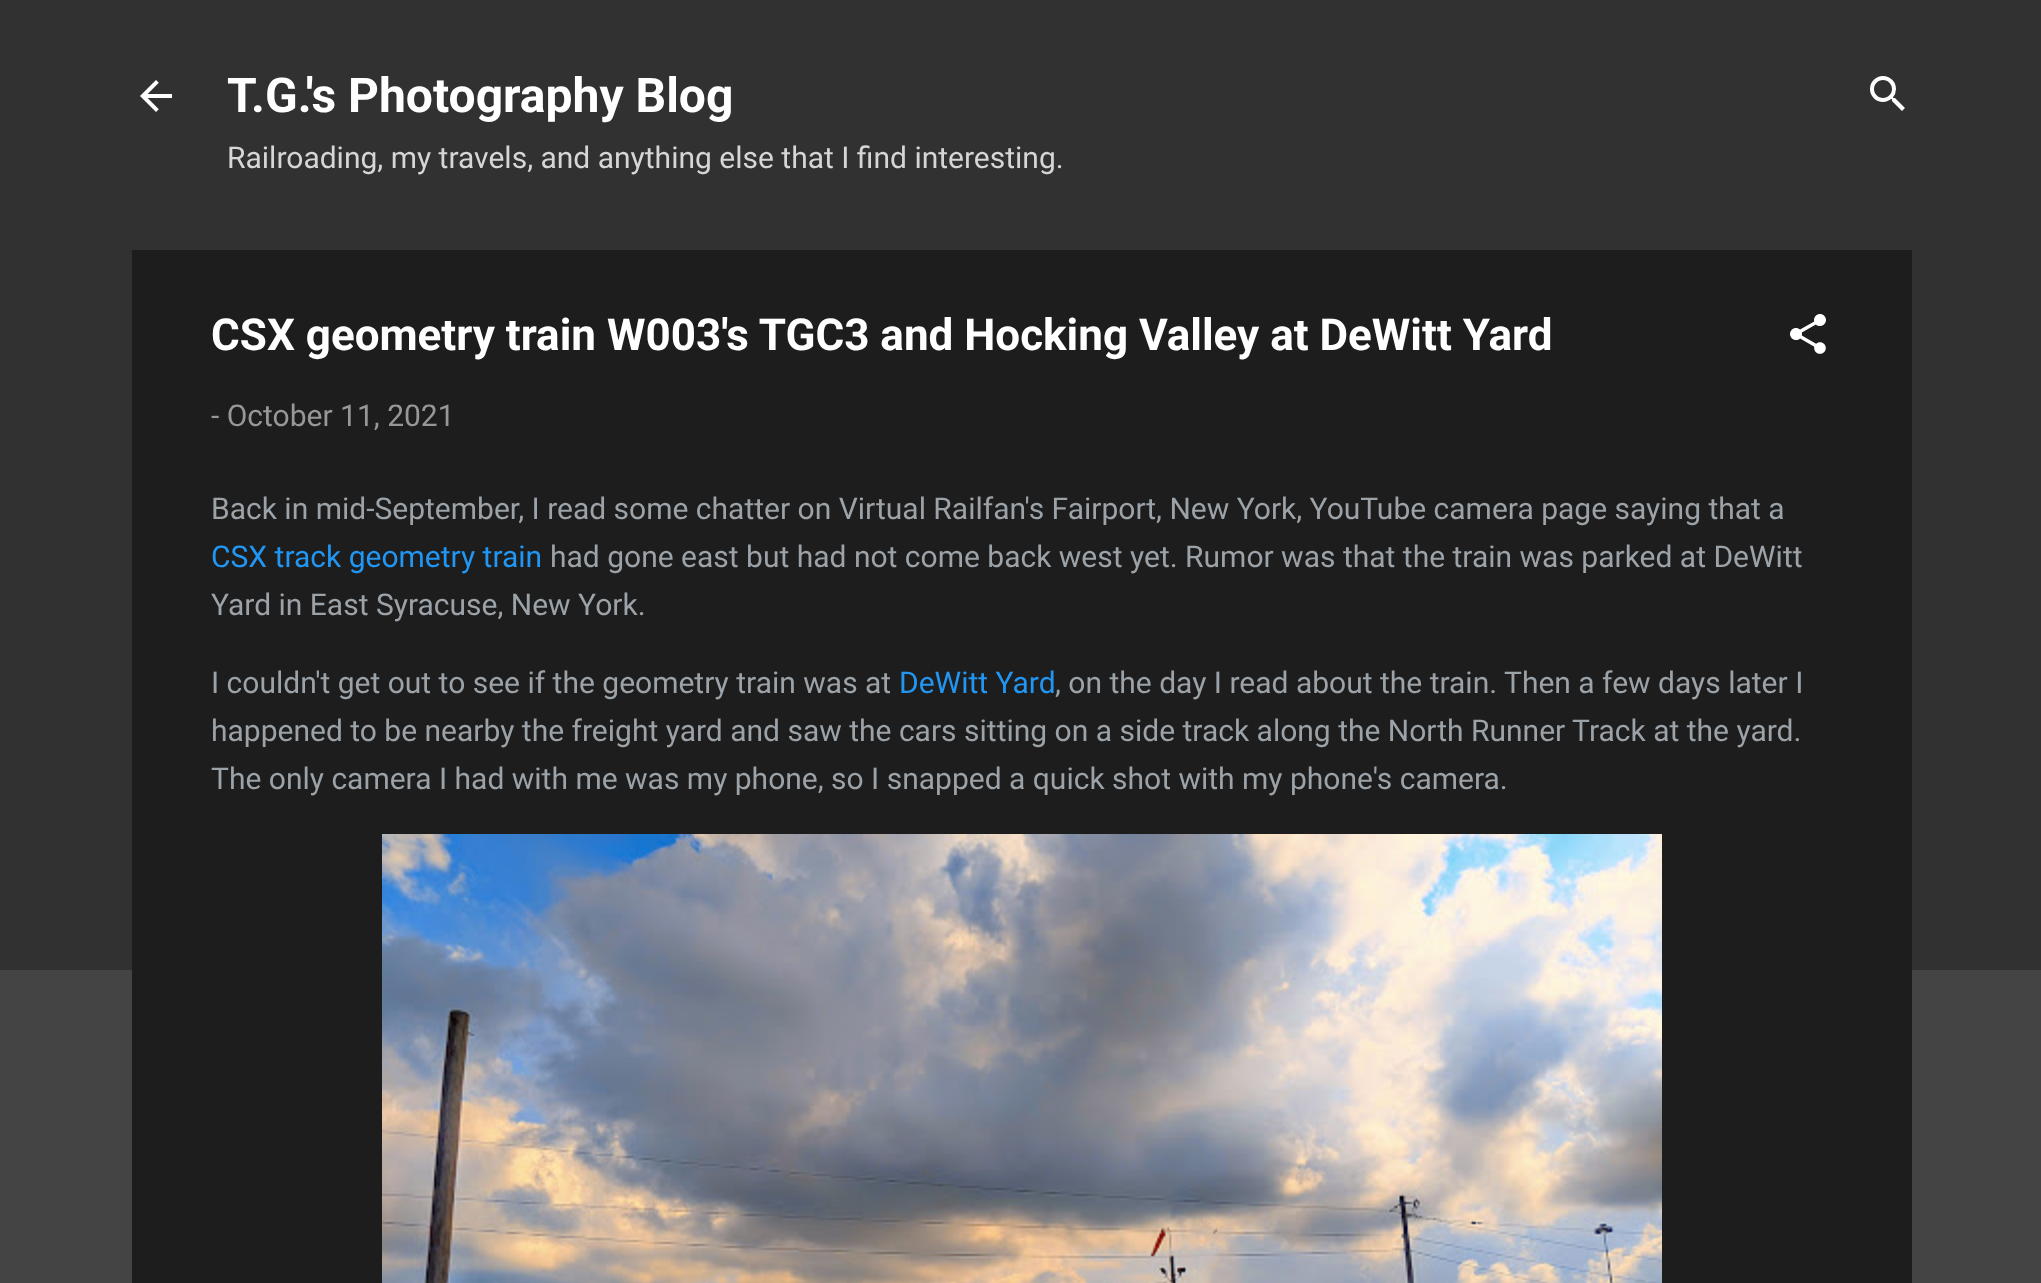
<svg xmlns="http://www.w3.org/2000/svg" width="2041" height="1283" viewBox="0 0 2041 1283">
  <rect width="100%" height="100%" fill="rgb(68,68,68)"/>
  <rect x="0" y="0" width="2041" height="970" fill="rgb(49,49,49)"/>
  <image x="140" y="80" width="32" height="32" href="pic1.png"/>
  <text x="227" y="112" font-family="Roboto" font-size="48" font-weight="bold" fill="rgb(255,255,255)">T.G.'s Photography Blog</text>
  <text x="227" y="168" font-family="Roboto" font-size="30" fill="rgb(214,214,214)">Railroading, my travels, and anything else that I find interesting.</text>
  <image x="1870" y="76" width="35" height="35" href="pic2.png"/>
  <rect x="132" y="250" width="1780" height="1033" fill="rgb(29,29,29)"/>
  <text x="211" y="350" font-family="Roboto" font-size="44" font-weight="bold" fill="rgb(255,255,255)">CSX geometry train W003's TGC3 and Hocking Valley at DeWitt Yard</text>
  <image x="1790" y="314" width="36" height="40" href="pic3.png"/>
  <text x="211" y="426" font-family="Roboto" font-size="30" fill="rgb(151,151,151)">- October 11, 2021</text>
  <text x="211" y="519" font-family="Roboto" font-size="30" fill="rgb(155,162,168)">Back in mid-September, I read some chatter on Virtual Railfan's Fairport, New York, YouTube camera page saying that a</text>
  <text x="211" y="567" font-family="Roboto" font-size="30" fill="rgb(33,150,243)">CSX track geometry train</text>
  <g font-family="Roboto" font-size="30" fill="rgb(155,162,168)">
    <text x="550" y="567">had gone east but had not come back west yet. Rumor was that the train was parked at DeWitt</text>
    <text x="211" y="615">Yard in East Syracuse, New York.</text>
    <text x="211" y="693">I couldn't get out to see if the geometry train was at</text>
  </g>
  <text x="899" y="693" font-family="Roboto" font-size="30" fill="rgb(33,150,243)">DeWitt Yard</text>
  <g font-family="Roboto" font-size="30" fill="rgb(155,162,168)">
    <text x="1055" y="693">, on the day I read about the train. Then a few days later I</text>
    <text>
      <tspan x="211" y="741">happened to be nearby the freight yard and saw the cars sitting on a side track along the North Runner Track at the yard.</tspan>
      <tspan x="211" y="789">The only camera I had with me was my phone, so I snapped a quick shot with my phone's camera.</tspan>
    </text>
  </g>
  <image x="382" y="834" width="1280" height="449" href="pic4.png"/>
</svg>
